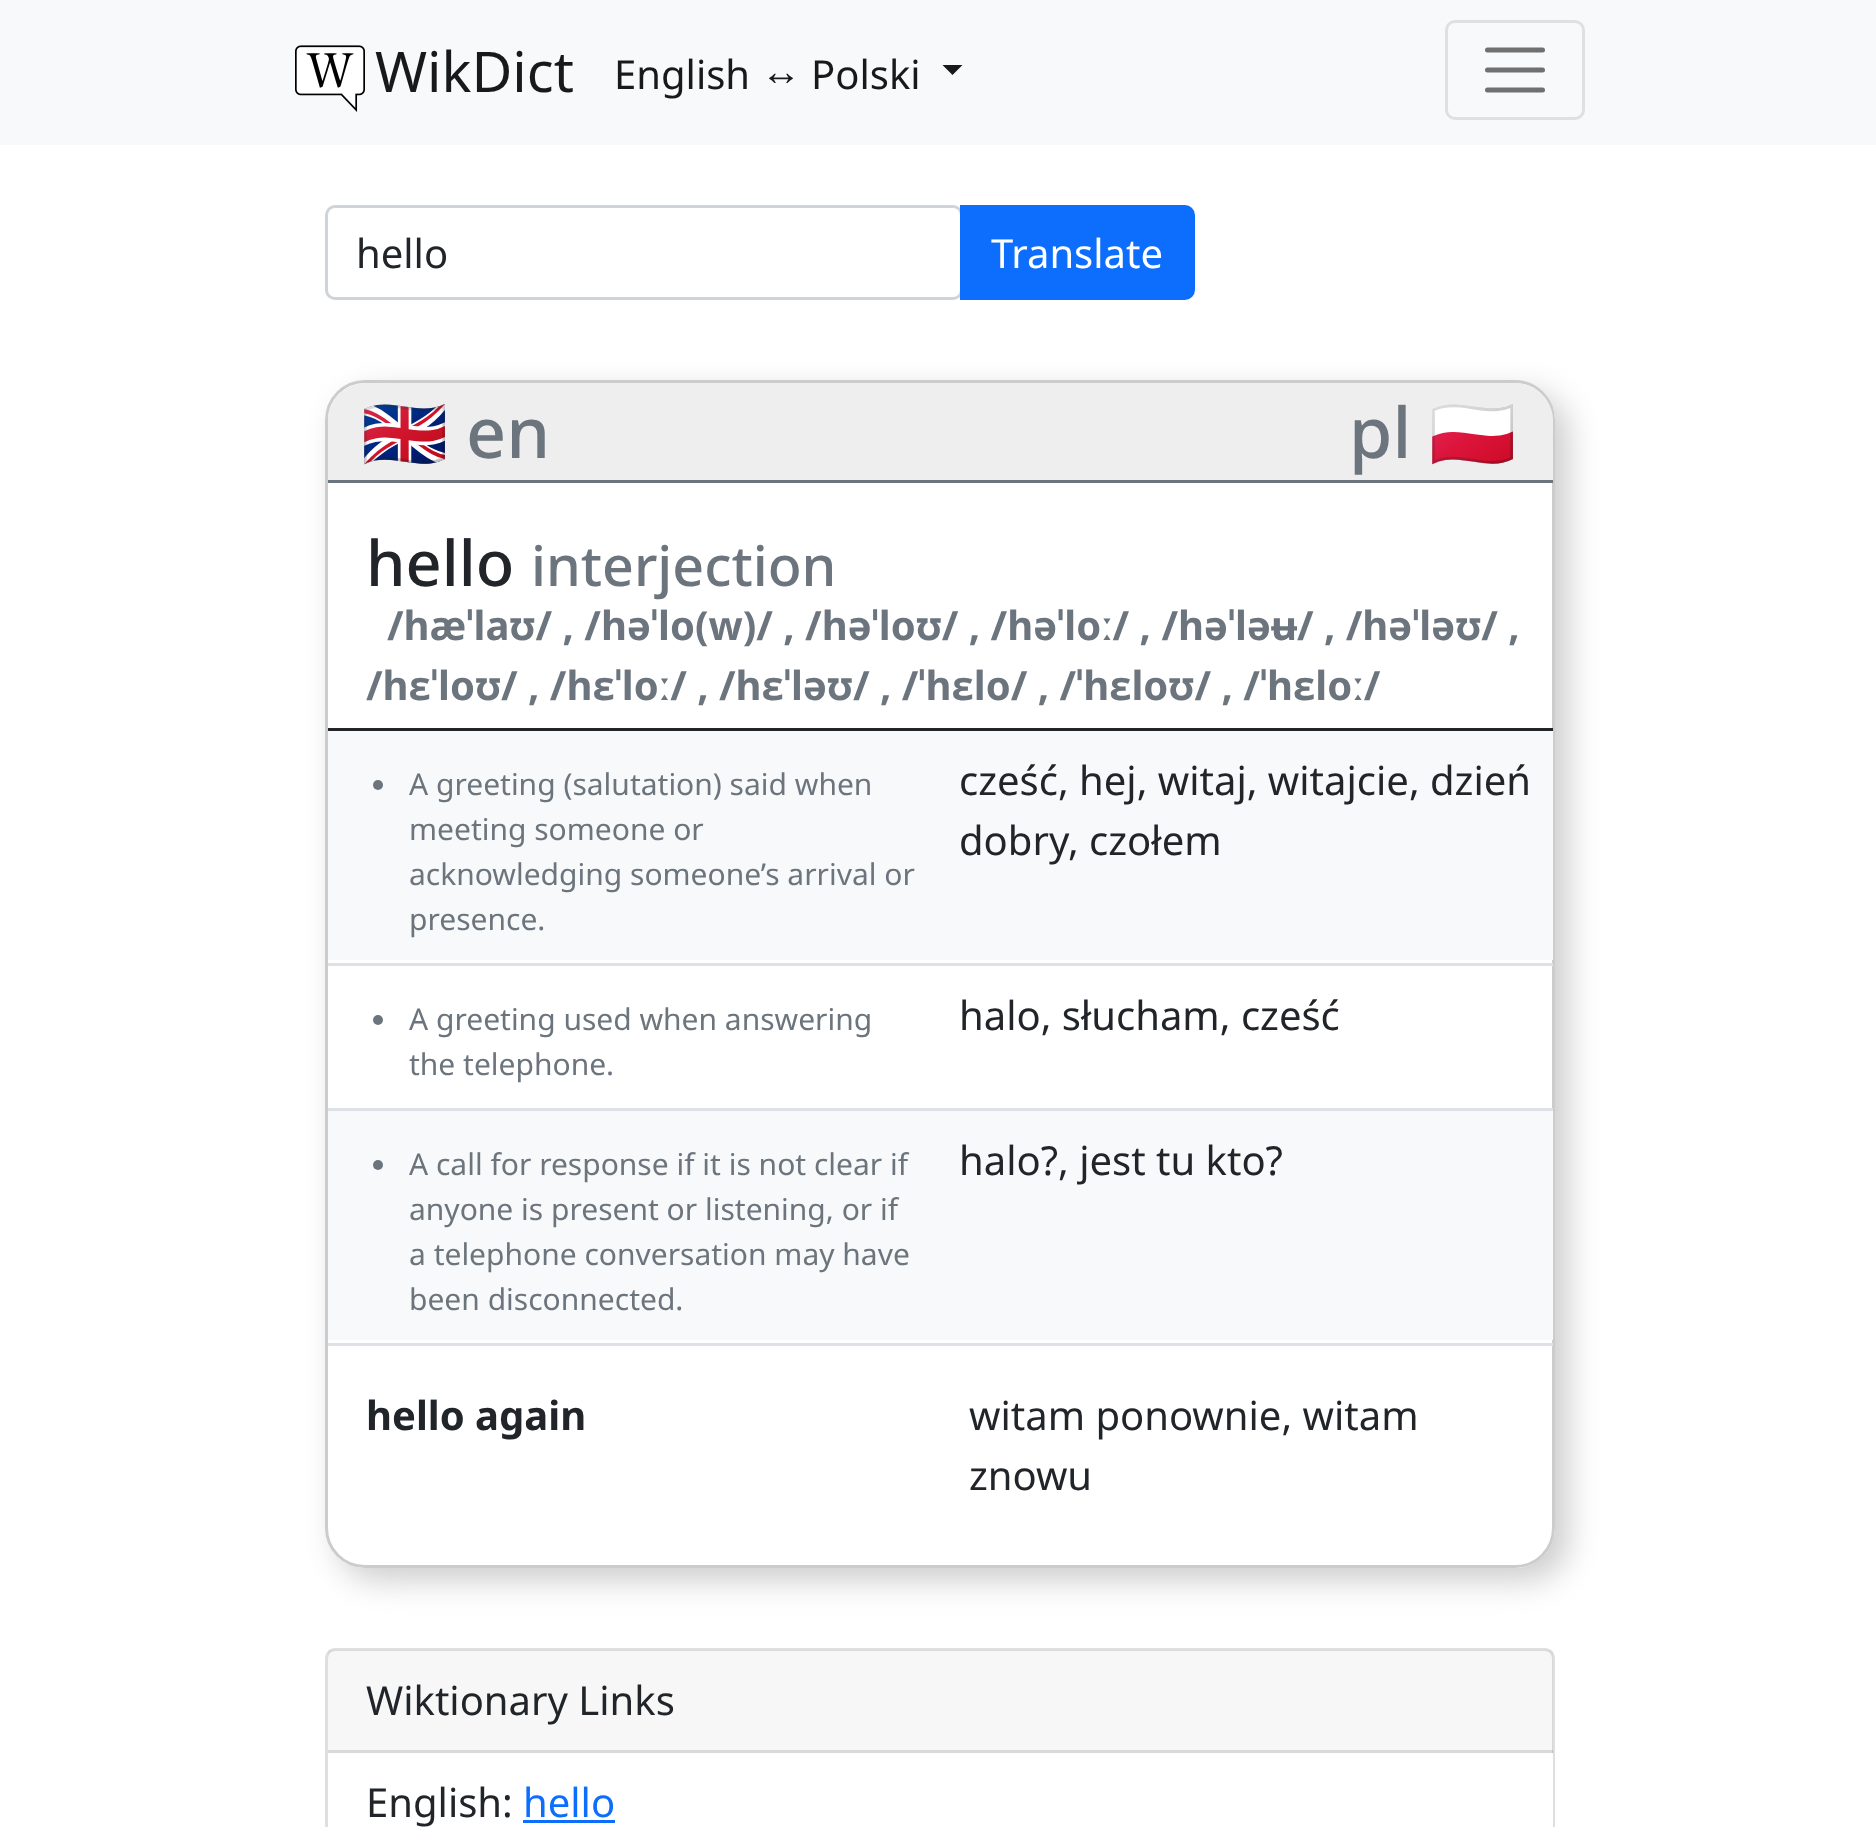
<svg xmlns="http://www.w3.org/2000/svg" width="1876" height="1827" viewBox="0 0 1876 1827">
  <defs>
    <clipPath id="clip1"><path d="M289 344H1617V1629H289ZM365 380H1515C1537 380 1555 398 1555 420V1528C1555 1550 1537 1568 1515 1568H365C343 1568 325 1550 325 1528V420C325 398 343 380 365 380Z" clip-rule="evenodd"/></clipPath>
  </defs>
  <rect width="100%" height="100%" fill="rgb(255,255,255)"/>
  <rect x="0" y="0" width="1876" height="145" fill="rgb(248,249,250)"/>
  <image x="295" y="45" width="70" height="67" href="pic1.png"/>
  <text x="375" y="92" font-family="Noto Sans" font-size="56" fill="rgb(25,25,25)">WikDict</text>
  <g font-family="Noto Sans" font-size="40" fill="rgb(25,25,25)">
    <text x="614" y="89">English</text>
    <text x="811" y="89">Polski</text>
  </g>
  <path d="M942.5 65H962.5L952.5 75Z" fill="rgb(25,25,25)"/>
  <text x="761" y="85" font-family="Liberation Sans" font-size="40" fill="rgb(25,25,25)">↔</text>
  <rect x="1446.5" y="21.5" width="137" height="97" rx="8.5" fill="none" stroke="rgb(223,224,225)" stroke-width="3"/>
  <path d="M1487.5 50H1542.5M1487.5 70H1542.5M1487.5 90H1542.5" fill="none" stroke="rgb(112,112,113)" stroke-width="5" stroke-linecap="round"/>
  <rect x="326.5" y="206.5" width="635" height="92" rx="8.5" fill="none" stroke="rgb(206,212,218)" stroke-width="3"/>
  <text x="356" y="268" font-family="Noto Sans" font-size="40" fill="rgb(33,37,41)">hello</text>
  <path d="M961.5 206.5H1185C1189.5 206.5 1193.5 210.5 1193.5 215V290C1193.5 294.5 1189.5 298.5 1185 298.5H961.5Z" fill="rgb(13,110,253)" stroke="rgb(13,110,253)" stroke-width="3"/>
  <text x="991" y="268" font-family="Noto Sans" font-size="40" fill="rgb(255,255,255)">Translate</text>
  <g clip-path="url(#clip1)">
    <rect x="338" y="393" width="1230" height="1187" rx="40" fill="rgb(204,204,204)" filter="blur(16px)"/>
  </g>
  <rect x="326.5" y="381.5" width="1227" height="1185" rx="38.5" fill="none" stroke="rgb(204,204,204)" stroke-width="3"/>
  <path d="M366 383H1515C1536 383 1553 400 1553 421V483H328V421C328 400 345 383 366 383Z" fill="rgb(238,238,238)"/>
  <rect x="328" y="480" width="1225" height="3" fill="rgb(108,117,125)"/>
  <text x="361" y="458" font-family="Noto Color Emoji" font-size="70" fill="rgb(108,117,125)">🇬🇧</text>
  <g font-family="Noto Sans" font-size="70" font-weight="500" fill="rgb(108,117,125)">
    <text x="466" y="458">en</text>
    <text x="1349" y="458">pl</text>
  </g>
  <text x="1429" y="458" font-family="Noto Color Emoji" font-size="70" fill="rgb(108,117,125)">🇵🇱</text>
  <rect x="328" y="728" width="1225" height="3" fill="rgb(33,37,41)"/>
  <text x="366" y="586" font-family="Noto Sans" font-size="63" font-weight="500" fill="rgb(33,37,41)">hello</text>
  <text x="531" y="586" font-family="Noto Sans" font-size="55.5" font-weight="500" fill="rgb(108,117,125)">interjection</text>
  <g font-family="Noto Sans" font-size="40" font-weight="bold" fill="rgb(108,117,125)">
    <text x="387" y="640">/hæˈlaʊ/ , /həˈlo(w)/ , /həˈloʊ/ , /həˈloː/ , /həˈləʉ/ , /həˈləʊ/ ,</text>
    <text x="366" y="700">/hɛˈloʊ/ , /hɛˈloː/ , /hɛˈləʊ/ , /ˈhɛlo/ , /ˈhɛloʊ/ , /ˈhɛloː/</text>
  </g>
  <rect x="328" y="731" width="1225" height="229" fill="rgb(248,249,250)"/>
  <circle cx="378" cy="785" r="5" fill="rgb(108,117,125)"/>
  <g font-family="Noto Sans" font-size="30" fill="rgb(108,117,125)">
    <text>
      <tspan x="409" y="795">A greeting (salutation) said when</tspan>
      <tspan x="409" y="840">meeting someone or</tspan>
      <tspan x="409" y="885">acknowledging someone’s arrival or</tspan>
      <tspan x="409" y="930">presence.</tspan>
    </text>
  </g>
  <rect x="328" y="963" width="1225" height="3" fill="rgb(222,226,230)"/>
  <g font-family="Noto Sans" font-size="40" fill="rgb(33,37,41)">
    <text>
      <tspan x="959" y="795">cześć, hej, witaj, witajcie, dzień</tspan>
      <tspan x="959" y="855">dobry</tspan>
    </text>
    <text x="1068" y="855">, czołem</text>
  </g>
  <circle cx="378" cy="1020" r="5" fill="rgb(108,117,125)"/>
  <g font-family="Noto Sans" font-size="30" fill="rgb(108,117,125)">
    <text>
      <tspan x="409" y="1030">A greeting used when answering</tspan>
      <tspan x="409" y="1075">the telephone.</tspan>
    </text>
  </g>
  <rect x="328" y="1108" width="1225" height="3" fill="rgb(222,226,230)"/>
  <text x="959" y="1030" font-family="Noto Sans" font-size="40" fill="rgb(33,37,41)">halo, słucham, cześć</text>
  <rect x="328" y="1111" width="1225" height="229" fill="rgb(248,249,250)"/>
  <circle cx="378" cy="1165" r="5" fill="rgb(108,117,125)"/>
  <g font-family="Noto Sans" font-size="30" fill="rgb(108,117,125)">
    <text>
      <tspan x="409" y="1175">A call for response if it is not clear if</tspan>
      <tspan x="409" y="1220">anyone is present or listening, or if</tspan>
      <tspan x="409" y="1265">a telephone conversation may have</tspan>
      <tspan x="409" y="1310">been disconnected.</tspan>
    </text>
  </g>
  <rect x="328" y="1343" width="1225" height="3" fill="rgb(222,226,230)"/>
  <text x="959" y="1175" font-family="Noto Sans" font-size="40" fill="rgb(33,37,41)">halo?, jest tu kto?</text>
  <text x="366" y="1430" font-family="Noto Sans" font-size="40" font-weight="bold" fill="rgb(33,37,41)">hello again</text>
  <g font-family="Noto Sans" font-size="40" fill="rgb(33,37,41)">
    <text>
      <tspan x="969" y="1430">witam ponownie, witam</tspan>
      <tspan x="969" y="1490">znowu</tspan>
    </text>
  </g>
  <rect x="326.5" y="1649.5" width="1227" height="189" rx="8.5" fill="none" stroke="rgb(223,223,223)" stroke-width="3"/>
  <rect x="328" y="1650" width="1225" height="103" fill="rgba(0,0,0,0.03)"/>
  <rect x="328" y="1750" width="1225" height="3" fill="rgba(0,0,0,0.12)"/>
  <text x="366" y="1715" font-family="Noto Sans" font-size="40" fill="rgb(33,37,41)">Wiktionary Links</text>
  <rect x="1552" y="1753" width="1" height="74" fill="rgb(255,255,255)"/>
  <text x="366" y="1817" font-family="Noto Sans" font-size="40" fill="rgb(33,37,41)">English:</text>
  <text x="523" y="1817" font-family="Noto Sans" font-size="40" fill="rgb(13,110,253)">hello</text>
  <rect x="523" y="1820" width="92" height="3" fill="rgb(13,110,253)"/>
</svg>
